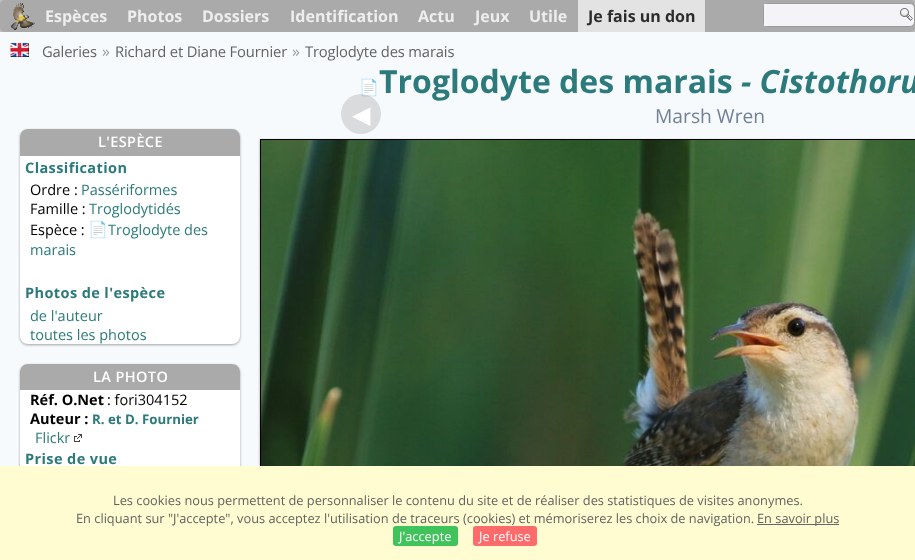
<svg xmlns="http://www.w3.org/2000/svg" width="915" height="560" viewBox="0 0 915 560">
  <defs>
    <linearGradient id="g1" gradientUnits="userSpaceOnUse" x1="457" y1="0" x2="458" y2="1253"><stop offset="0" stop-color="rgb(187,187,187)"/><stop offset="0.2" stop-color="rgb(187,187,187)"/><stop offset="0.36" stop-color="rgb(221,221,221)"/><stop offset="0.9" stop-color="rgb(255,255,255)"/><stop offset="1" stop-color="rgb(255,255,255)"/></linearGradient>
  </defs>
  <rect width="100%" height="100%" fill="rgb(255,255,255)"/>
  <rect x="0" y="0" width="915" height="32" fill="url(#g1)"/>
  <rect x="0" y="0" width="915" height="32" rx="5" fill="rgb(170,170,170)"/>
  <image x="11" y="2" width="24" height="28" href="pic1.png"/>
  <g font-family="Open Sans" font-size="16" font-weight="bold" fill="rgb(238,238,238)">
    <text x="45" y="22">Espèces</text>
    <text x="127" y="22">Photos</text>
    <text x="202" y="22">Dossiers</text>
    <text x="290" y="22">Identification</text>
    <text x="418" y="22">Actu</text>
    <text x="475" y="22">Jeux</text>
    <text x="529" y="22">Utile</text>
  </g>
  <rect x="578" y="0" width="127" height="32" fill="rgb(227,227,227)"/>
  <text x="588" y="22" font-family="Open Sans" font-size="16" font-weight="bold" fill="rgb(44,44,44)">Je fais un don</text>
  <rect x="763.5" y="3.5" width="151" height="23" rx="4.5" fill="rgb(243,243,248)" stroke="rgb(153,153,153)"/>
  <rect x="764" y="4" width="4" height="22" fill="rgb(243,243,248)"/>
  <image x="900" y="8" width="13" height="13" href="pic2.png"/>
  <rect x="0" y="32" width="915" height="434" fill="rgb(247,250,252)"/>
  <image x="10" y="42" width="19" height="15" href="pic3.png"/>
  <text x="42" y="57" font-family="Open Sans" font-size="14.75" letter-spacing="-0.15" fill="rgb(98,98,98)">Galeries</text>
  <text x="102" y="57" font-family="Open Sans" font-size="16" fill="rgb(153,153,153)">»</text>
  <text x="115" y="57" font-family="Open Sans" font-size="14.75" letter-spacing="-0.15" fill="rgb(98,98,98)">Richard et Diane Fournier</text>
  <text x="292" y="57" font-family="Open Sans" font-size="16" fill="rgb(153,153,153)">»</text>
  <text x="305" y="57" font-family="Open Sans" font-size="14.75" letter-spacing="-0.15" fill="rgb(98,98,98)">Troglodyte des marais</text>
  <text x="359" y="93" font-family="Noto Color Emoji" font-size="16" font-weight="bold" fill="rgb(44,122,123)">📄</text>
  <text x="379" y="93" font-family="Open Sans" font-size="32" font-weight="bold" fill="rgb(44,122,123)">Troglodyte des marais</text>
  <text x="741" y="93" font-family="Open Sans" font-size="32" font-weight="bold" font-style="italic" fill="rgb(44,122,123)">- Cistothoru</text>
  <text x="655" y="123" font-family="Open Sans" font-size="19.25" fill="rgb(113,128,150)">Marsh Wren</text>
  <circle cx="361" cy="114" r="20" fill="rgba(0,0,0,0.12)"/>
  <text x="352" y="123" font-family="DejaVu Sans" font-size="24" fill="rgb(255,255,255)">◀</text>
  <rect x="260" y="140" width="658" height="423" fill="rgba(0,0,0,0.24)" filter="blur(1px)"/>
  <rect x="260" y="140" width="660" height="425" fill="rgba(0,0,0,0.12)" filter="blur(1.5px)"/>
  <rect x="260.5" y="139.5" width="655" height="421" fill="none" stroke="rgb(0,0,0)"/>
  <image x="261" y="140" width="654" height="326" href="pic4.png"/>
  <rect x="20" y="130" width="220" height="215" rx="8" fill="rgba(0,0,0,0.24)" filter="blur(1px)"/>
  <rect x="20" y="130" width="220" height="215" rx="8" fill="rgba(0,0,0,0.12)" filter="blur(1.5px)"/>
  <rect x="20" y="129" width="220" height="215" rx="8" fill="rgb(255,255,255)"/>
  <path d="M28 129H232C236.5 129 240 132.5 240 137V156H20V137C20 132.5 23.5 129 28 129Z" fill="rgb(170,170,170)"/>
  <text x="98" y="147" font-family="Open Sans" font-size="14.5" font-weight="600" letter-spacing="0.4" fill="rgb(255,255,255)">L'ESPÈCE</text>
  <text x="25" y="173" font-family="Open Sans" font-size="14.5" font-weight="bold" letter-spacing="0.4" fill="rgb(44,122,123)">Classification</text>
  <text x="30" y="195" font-family="Open Sans" font-size="14.5" fill="rgb(0,0,0)">Ordre :</text>
  <text x="81" y="195" font-family="Open Sans" font-size="14.5" fill="rgb(44,122,123)">Passériformes</text>
  <text x="30" y="214" font-family="Open Sans" font-size="14.5" fill="rgb(0,0,0)">Famille :</text>
  <text x="89" y="214" font-family="Open Sans" font-size="14.5" fill="rgb(44,122,123)">Troglodytidés</text>
  <text x="30" y="235" font-family="Open Sans" font-size="14.5" fill="rgb(0,0,0)">Espèce :</text>
  <text x="88" y="235" font-family="Noto Color Emoji" font-size="16" fill="rgb(44,122,123)">📄</text>
  <g font-family="Open Sans" font-size="14.5" fill="rgb(44,122,123)">
    <text x="108" y="235">Troglodyte des</text>
    <text x="30" y="255">marais</text>
  </g>
  <text x="25" y="298" font-family="Open Sans" font-size="14.5" font-weight="bold" letter-spacing="0.4" fill="rgb(44,122,123)">Photos de l'espèce</text>
  <g font-family="Open Sans" font-size="14.5" fill="rgb(44,122,123)">
    <text>
      <tspan x="30" y="321">de l'auteur</tspan>
      <tspan x="30" y="340">toutes les photos</tspan>
    </text>
  </g>
  <rect x="20" y="365" width="220" height="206" rx="8" fill="rgba(0,0,0,0.24)" filter="blur(1px)"/>
  <rect x="20" y="365" width="220" height="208" rx="8" fill="rgba(0,0,0,0.12)" filter="blur(1.5px)"/>
  <rect x="20" y="364" width="220" height="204" rx="8" fill="rgb(255,255,255)"/>
  <path d="M28 364H232C236.5 364 240 367.5 240 372V390H20V372C20 367.5 23.5 364 28 364Z" fill="rgb(170,170,170)"/>
  <text x="93" y="382" font-family="Open Sans" font-size="14.5" font-weight="600" letter-spacing="0.4" fill="rgb(255,255,255)">LA PHOTO</text>
  <text x="30" y="405" font-family="Open Sans" font-size="14.5" font-weight="bold" fill="rgb(0,0,0)">Réf. O.Net</text>
  <text x="107" y="405" font-family="Open Sans" font-size="14.5" fill="rgb(0,0,0)">: fori304152</text>
  <text x="30" y="424" font-family="Open Sans" font-size="14.5" font-weight="bold" fill="rgb(0,0,0)">Auteur :</text>
  <text x="92" y="424" font-family="Open Sans" font-size="13.25" font-weight="bold" fill="rgb(44,122,123)">R. et D. Fournier</text>
  <text x="35" y="443" font-family="Open Sans" font-size="14.5" fill="rgb(44,122,123)">Flickr</text>
  <image x="74" y="434" width="8" height="8" href="pic5.png"/>
  <text x="25" y="464" font-family="Open Sans" font-size="14.5" font-weight="bold" letter-spacing="0.4" fill="rgb(44,122,123)">Prise de vue</text>
  <rect x="0" y="466" width="915" height="94" fill="rgb(255,252,209)"/>
  <g font-family="Open Sans" font-size="12.8" fill="rgb(98,98,98)">
    <text x="113" y="505">Les cookies nous permettent de personnaliser le contenu du site et de réaliser des statistiques de visites anonymes.</text>
    <text x="76" y="523">En cliquant sur "J'accepte", vous acceptez l'utilisation de traceurs (cookies) et mémoriserez les choix de navigation.</text>
  </g>
  <rect x="757" y="524" width="82" height="1" fill="rgb(102,102,102)"/>
  <text x="757" y="523" font-family="Open Sans" font-size="12.8" fill="rgb(98,98,98)">En savoir plus</text>
  <rect x="393" y="526" width="65" height="20" rx="3" fill="rgb(63,195,90)"/>
  <text x="399" y="541" font-family="Open Sans" font-size="12.8" fill="rgb(255,255,255)">J'accepte</text>
  <rect x="473" y="526" width="64" height="20" rx="3" fill="rgb(255,107,107)"/>
  <text x="479" y="541" font-family="Open Sans" font-size="12.8" fill="rgb(255,255,255)">Je refuse</text>
</svg>
